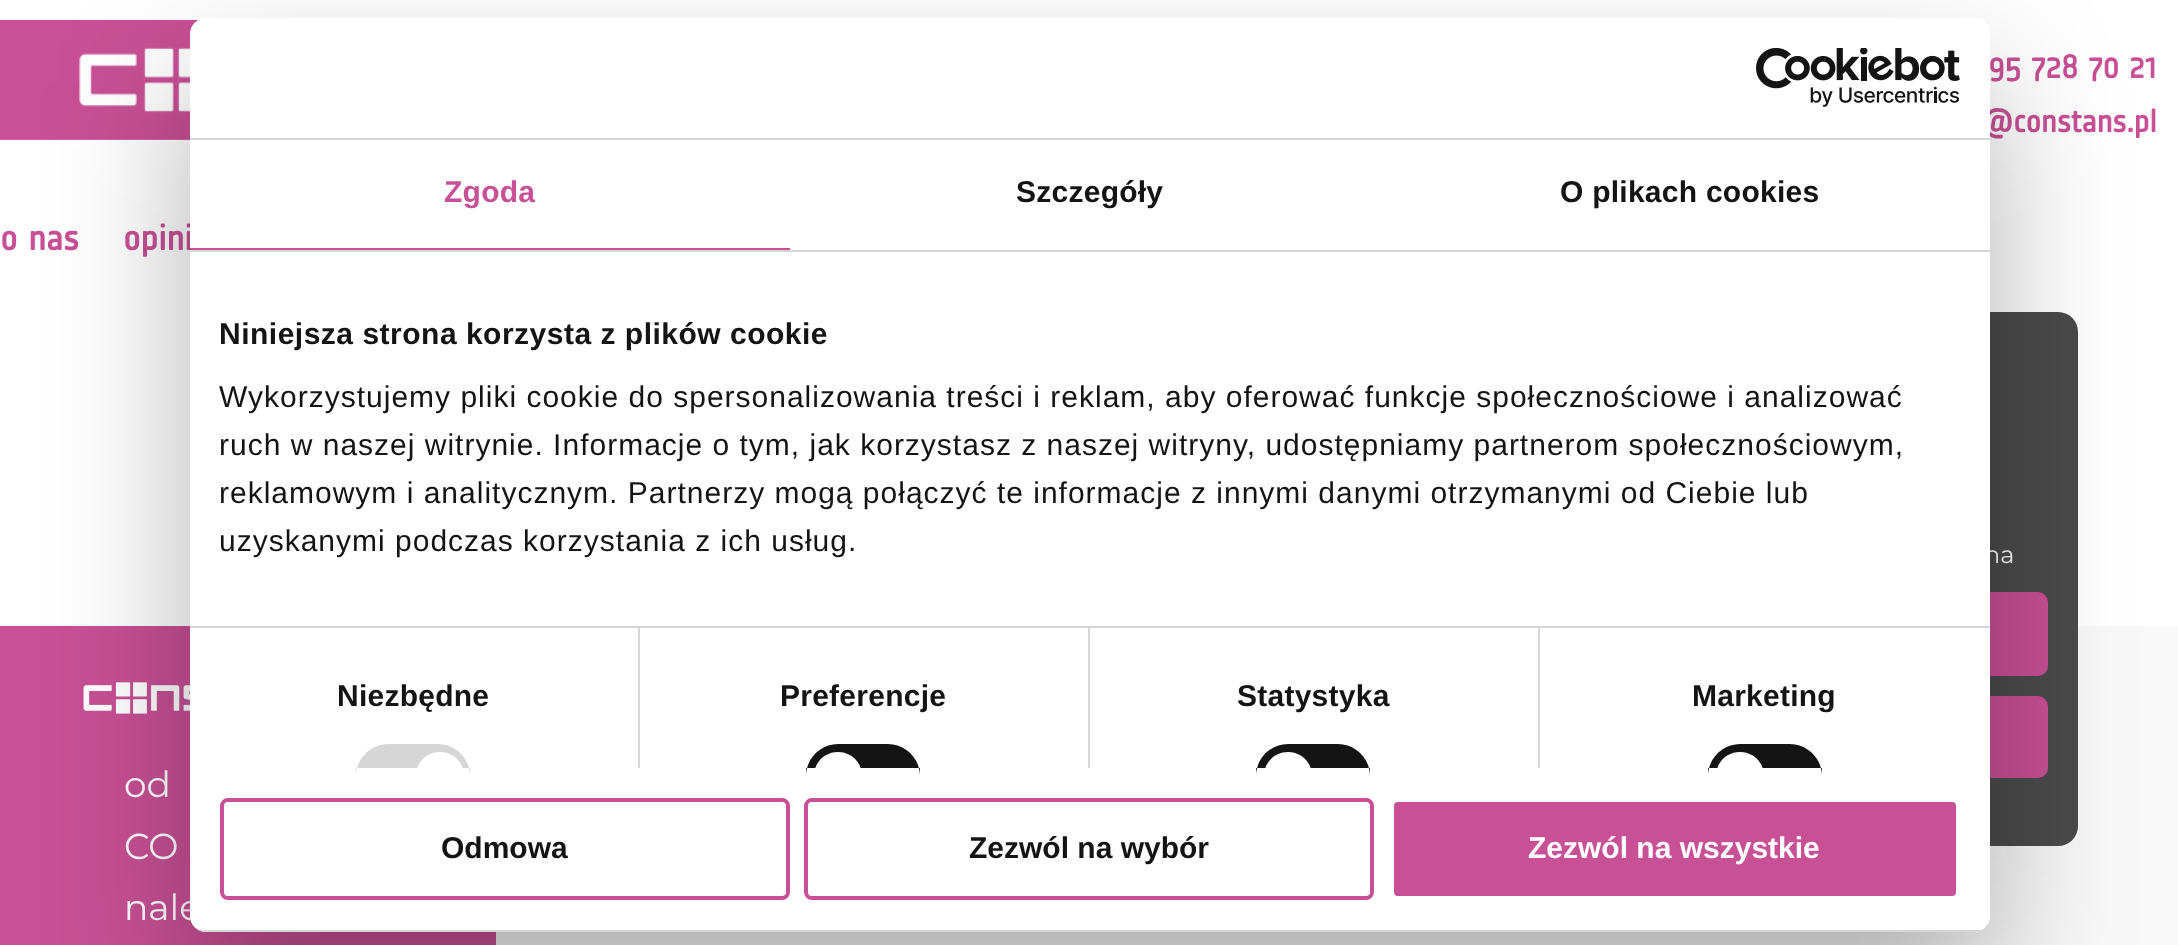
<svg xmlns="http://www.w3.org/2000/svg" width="2178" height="945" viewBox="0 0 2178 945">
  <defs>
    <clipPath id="clip1"><rect x="190" y="18" width="1800" height="914" rx="16"/></clipPath>
  </defs>
  <rect width="100%" height="100%" fill="rgb(255,255,255)"/>
  <g font-family="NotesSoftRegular" font-size="32" font-weight="bold" fill="rgb(200,80,150)">
    <text x="1988" y="78">95 728 70 21</text>
    <text x="1982" y="132">@constans.pl</text>
  </g>
  <image x="0" y="20" width="199" height="120" href="pic1.png"/>
  <g font-family="NotesSoftRegular" font-size="36" font-weight="bold" fill="rgb(200,80,150)">
    <text x="0" y="250">o nas</text>
    <text x="123" y="250">opini</text>
  </g>
  <rect x="496" y="626" width="1682" height="319" fill="rgb(248,248,248)"/>
  <rect x="1518" y="312" width="560" height="534" rx="20" fill="rgb(75,75,75)"/>
  <text x="1984" y="563" font-family="Montserrat" font-size="24" font-weight="100" fill="rgb(255,255,255)">na</text>
  <rect x="1548" y="592" width="500" height="84" rx="10" fill="rgb(200,80,150)"/>
  <rect x="1548" y="696" width="500" height="82" rx="10" fill="rgb(200,80,150)"/>
  <rect x="0" y="626" width="496" height="319" fill="rgb(200,80,150)"/>
  <image x="83" y="682" width="107" height="32" href="pic2.png"/>
  <g font-family="Montserrat" font-size="36" font-weight="100" fill="rgb(255,255,255)">
    <text>
      <tspan x="124" y="797" word-spacing="107">od</tspan>
      <tspan x="124" y="859">CO</tspan>
      <tspan x="124" y="920" word-spacing="78">nale</tspan>
    </text>
  </g>
  <rect x="190" y="82" width="1800" height="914" rx="16" fill="rgba(0,0,0,0.3)" filter="blur(68px)"/>
  <rect x="190" y="18" width="1800" height="914" rx="16" fill="rgb(255,255,255)"/>
  <rect x="190" y="138" width="1800" height="2" fill="rgb(214,214,214)"/>
  <image x="1756" y="48" width="204" height="59" href="pic3.png"/>
  <rect x="190" y="250" width="1800" height="2" fill="rgb(214,214,214)"/>
  <rect x="190" y="248" width="600" height="2" fill="rgb(200,80,150)"/>
  <text x="444" y="202" font-family="Liberation Sans" font-size="30" font-weight="bold" letter-spacing="0.25" fill="rgb(200,80,150)">Zgoda</text>
  <g font-family="Liberation Sans" font-size="30" font-weight="bold" letter-spacing="0.25" fill="rgb(20,20,20)">
    <text x="1016" y="202">Szczegóły</text>
    <text x="1560" y="202">O plikach cookies</text>
  </g>
  <rect x="190" y="626" width="1800" height="2" fill="rgb(214,214,214)"/>
  <text x="219" y="344" font-family="Liberation Sans" font-size="30" font-weight="bold" letter-spacing="0.5" fill="rgb(20,20,20)">Niniejsza strona korzysta z plików cookie</text>
  <g font-family="Liberation Sans" font-size="30" letter-spacing="1" fill="rgb(20,20,20)">
    <text>
      <tspan x="219" y="407">Wykorzystujemy pliki cookie do spersonalizowania treści i reklam, aby oferować funkcje społecznościowe i analizować</tspan>
      <tspan x="219" y="455">ruch w naszej witrynie. Informacje o tym, jak korzystasz z naszej witryny, udostępniamy partnerom społecznościowym,</tspan>
      <tspan x="219" y="503">reklamowym i analitycznym. Partnerzy mogą połączyć te informacje z innymi danymi otrzymanymi od Ciebie lub</tspan>
      <tspan x="219" y="551">uzyskanymi podczas korzystania z ich usług.</tspan>
    </text>
  </g>
  <rect x="638" y="628" width="2" height="140" fill="rgb(214,214,214)"/>
  <text x="337" y="706" font-family="Liberation Sans" font-size="30" font-weight="bold" letter-spacing="0.25" fill="rgb(20,20,20)">Niezbędne</text>
  <path d="M388 744H438C455.5 744 470 758.5 470 776V768H356V776C356 758.5 370.5 744 388 744Z" fill="rgb(214,214,214)"/>
  <path d="M440 752C453.5 752 464 762.5 464 776V768H416V776C416 762.5 426.5 752 440 752Z" fill="rgb(255,255,255)"/>
  <rect x="1088" y="628" width="2" height="140" fill="rgb(214,214,214)"/>
  <text x="780" y="706" font-family="Liberation Sans" font-size="30" font-weight="bold" letter-spacing="0.25" fill="rgb(20,20,20)">Preferencje</text>
  <path d="M838 744H888C905.5 744 920 758.5 920 776V768H806V776C806 758.5 820.5 744 838 744Z" fill="rgb(20,20,20)"/>
  <path d="M838 752C851.5 752 862 762.5 862 776V768H814V776C814 762.5 824.5 752 838 752Z" fill="rgb(255,255,255)"/>
  <rect x="1538" y="628" width="2" height="140" fill="rgb(214,214,214)"/>
  <text x="1237" y="706" font-family="Liberation Sans" font-size="30" font-weight="bold" letter-spacing="0.25" fill="rgb(20,20,20)">Statystyka</text>
  <path d="M1288 744H1338C1355.5 744 1370 758.5 1370 776V768H1256V776C1256 758.5 1270.5 744 1288 744Z" fill="rgb(20,20,20)"/>
  <path d="M1288 752C1301.5 752 1312 762.5 1312 776V768H1264V776C1264 762.5 1274.5 752 1288 752Z" fill="rgb(255,255,255)"/>
  <text x="1692" y="706" font-family="Liberation Sans" font-size="30" font-weight="bold" letter-spacing="0.25" fill="rgb(20,20,20)">Marketing</text>
  <path d="M1740 744H1790C1807.5 744 1822 758.5 1822 776V768H1708V776C1708 758.5 1722.5 744 1740 744Z" fill="rgb(20,20,20)"/>
  <path d="M1740 752C1753.5 752 1764 762.5 1764 776V768H1716V776C1716 762.5 1726.5 752 1740 752Z" fill="rgb(255,255,255)"/>
  <g clip-path="url(#clip1)">
    <rect x="190" y="930" width="1800" height="2" fill="rgb(214,214,214)"/>
  </g>
  <rect x="222" y="800" width="566" height="98" rx="6" fill="none" stroke="rgb(200,80,150)" stroke-width="4"/>
  <text x="441" y="858" font-family="Liberation Sans" font-size="30" font-weight="bold" fill="rgb(20,20,20)">Odmowa</text>
  <rect x="806" y="800" width="566" height="98" rx="6" fill="none" stroke="rgb(200,80,150)" stroke-width="4"/>
  <text x="969" y="858" font-family="Liberation Sans" font-size="30" font-weight="bold" fill="rgb(20,20,20)">Zezwól na wybór</text>
  <rect x="1392" y="800" width="566" height="98" rx="6" fill="rgb(200,80,150)" stroke="rgb(255,255,255)" stroke-width="4"/>
  <text x="1528" y="858" font-family="Liberation Sans" font-size="30" font-weight="bold" fill="rgb(255,255,255)">Zezwól na wszystkie</text>
</svg>
